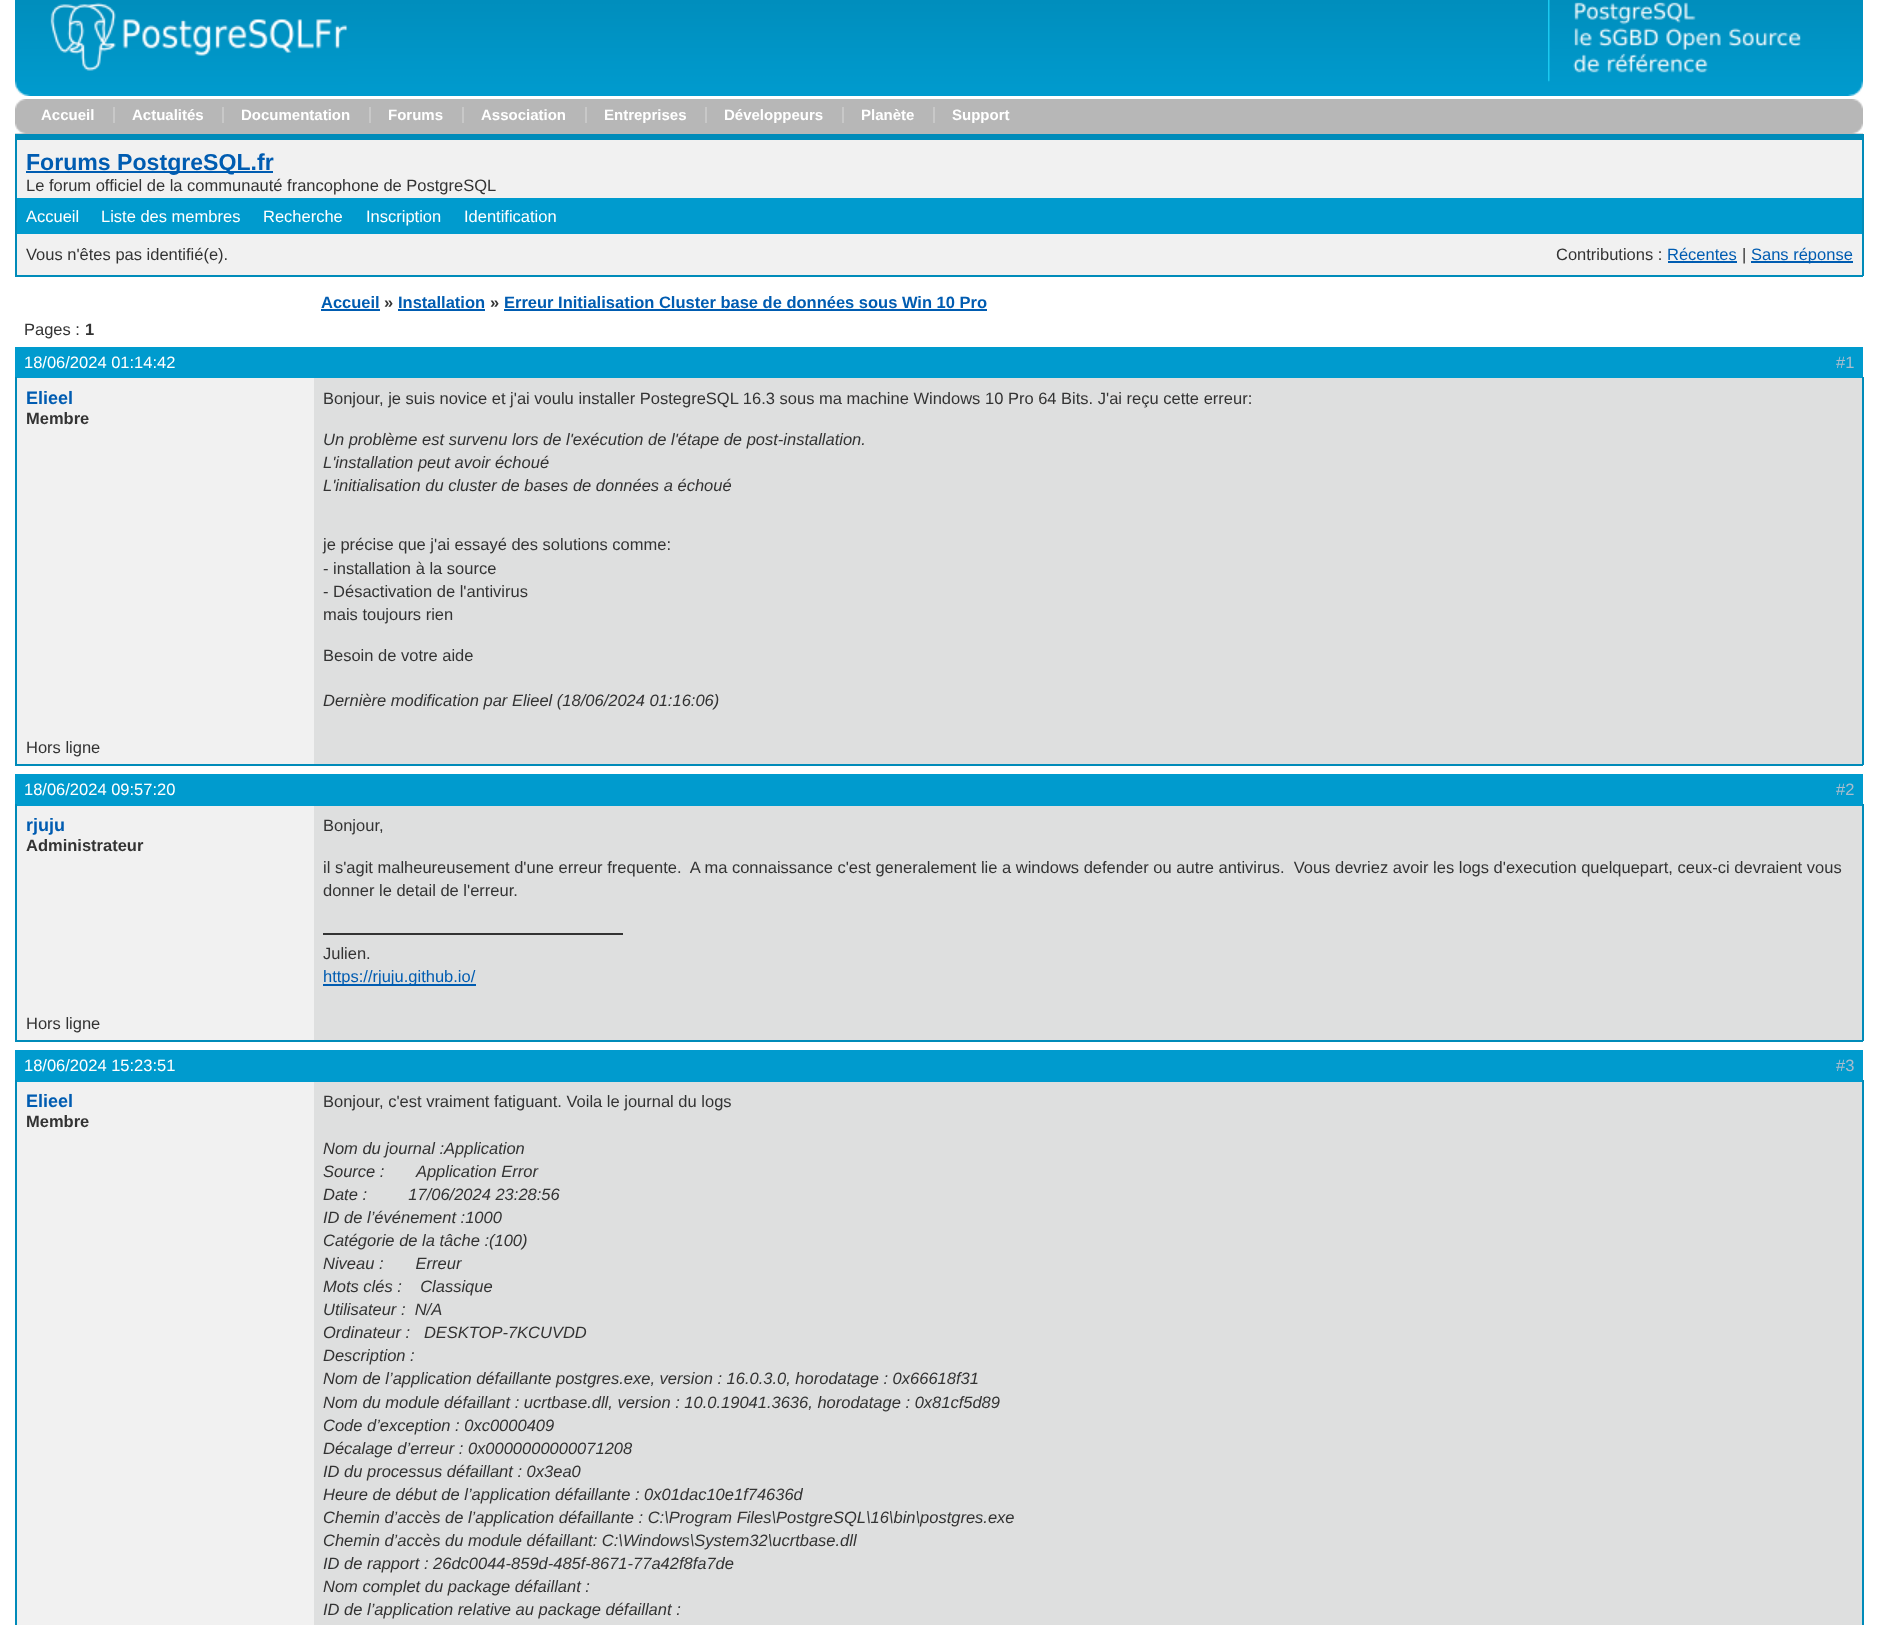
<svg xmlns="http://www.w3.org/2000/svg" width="1877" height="1625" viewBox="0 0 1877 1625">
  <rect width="100%" height="100%" fill="rgb(255,255,255)"/>
  <image x="15" y="0" width="1533" height="96" href="pic1.png"/>
  <image x="15" y="2" width="333" height="94" href="pic2.png"/>
  <image x="1548" y="0" width="315" height="96" href="pic3.png"/>
  <rect x="15" y="99" width="1848" height="35" fill="rgb(183,183,183)"/>
  <image x="15" y="99" width="11" height="35" href="pic4.png"/>
  <g font-family="Liberation Sans" font-size="15" font-weight="bold" fill="rgb(255,255,255)">
    <text x="41" y="120">Accueil</text>
    <text x="132" y="120">Actualités</text>
  </g>
  <rect x="113" y="107" width="2" height="16" fill="rgb(200,200,200)"/>
  <text x="241" y="120" font-family="Liberation Sans" font-size="15" font-weight="bold" fill="rgb(255,255,255)">Documentation</text>
  <rect x="222" y="107" width="2" height="16" fill="rgb(200,200,200)"/>
  <text x="388" y="120" font-family="Liberation Sans" font-size="15" font-weight="bold" fill="rgb(255,255,255)">Forums</text>
  <rect x="369" y="107" width="2" height="16" fill="rgb(200,200,200)"/>
  <text x="481" y="120" font-family="Liberation Sans" font-size="15" font-weight="bold" fill="rgb(255,255,255)">Association</text>
  <rect x="462" y="107" width="2" height="16" fill="rgb(200,200,200)"/>
  <text x="604" y="120" font-family="Liberation Sans" font-size="15" font-weight="bold" fill="rgb(255,255,255)">Entreprises</text>
  <rect x="585" y="107" width="2" height="16" fill="rgb(200,200,200)"/>
  <text x="724" y="120" font-family="Liberation Sans" font-size="15" font-weight="bold" fill="rgb(255,255,255)">Développeurs</text>
  <rect x="705" y="107" width="2" height="16" fill="rgb(200,200,200)"/>
  <text x="861" y="120" font-family="Liberation Sans" font-size="15" font-weight="bold" fill="rgb(255,255,255)">Planète</text>
  <rect x="842" y="107" width="2" height="16" fill="rgb(200,200,200)"/>
  <text x="952" y="120" font-family="Liberation Sans" font-size="15" font-weight="bold" fill="rgb(255,255,255)">Support</text>
  <rect x="933" y="107" width="2" height="16" fill="rgb(200,200,200)"/>
  <image x="1852" y="99" width="11" height="35" href="pic5.png"/>
  <rect x="17" y="140" width="1845" height="135" fill="rgb(241,241,241)"/>
  <rect x="15" y="134" width="1848" height="6" fill="rgb(0,139,185)"/>
  <rect x="1862" y="134" width="2" height="142" fill="rgb(0,139,185)"/>
  <rect x="15" y="275" width="1848" height="2" fill="rgb(0,139,185)"/>
  <rect x="15" y="134" width="2" height="142" fill="rgb(0,139,185)"/>
  <rect x="26" y="171" width="247" height="2" fill="rgb(0,92,177)"/>
  <text x="26" y="170" font-family="Liberation Sans" font-size="23.1" font-weight="bold" fill="rgb(0,92,177)">Forums PostgreSQL.fr</text>
  <text x="26" y="191" font-family="Liberation Sans" font-size="16.5" fill="rgb(51,51,51)">Le forum officiel de la communauté francophone de PostgreSQL</text>
  <rect x="17" y="198" width="1845" height="36" fill="rgb(0,155,206)"/>
  <g font-family="Liberation Sans" font-size="16.5" fill="rgb(255,255,255)">
    <text x="26" y="222">Accueil</text>
    <text x="101" y="222">Liste des membres</text>
    <text x="263" y="222">Recherche</text>
    <text x="366" y="222">Inscription</text>
    <text x="464" y="222">Identification</text>
  </g>
  <g font-family="Liberation Sans" font-size="16.5" fill="rgb(51,51,51)">
    <text x="26" y="260">Vous n'êtes pas identifié(e).</text>
    <text x="1556" y="260">Contributions :</text>
  </g>
  <text x="1667" y="260" font-family="Liberation Sans" font-size="16.5" fill="rgb(0,92,177)">Récentes</text>
  <rect x="1668" y="261" width="69" height="2" fill="rgb(0,92,177)"/>
  <text x="1742" y="260" font-family="Liberation Sans" font-size="16.5" fill="rgb(51,51,51)">|</text>
  <rect x="1751" y="261" width="102" height="2" fill="rgb(0,92,177)"/>
  <text x="1751" y="260" font-family="Liberation Sans" font-size="16.5" fill="rgb(0,92,177)">Sans réponse</text>
  <text x="321" y="308" font-family="Liberation Sans" font-size="16.5" font-weight="bold" fill="rgb(0,92,177)">Accueil</text>
  <rect x="321" y="309" width="59" height="2" fill="rgb(0,92,177)"/>
  <text x="384" y="308" font-family="Liberation Sans" font-size="16.5" font-weight="bold" fill="rgb(51,51,51)">»</text>
  <text x="398" y="308" font-family="Liberation Sans" font-size="16.5" font-weight="bold" fill="rgb(0,92,177)">Installation</text>
  <rect x="398" y="309" width="87" height="2" fill="rgb(0,92,177)"/>
  <text x="490" y="308" font-family="Liberation Sans" font-size="16.5" font-weight="bold" fill="rgb(51,51,51)">»</text>
  <text x="504" y="308" font-family="Liberation Sans" font-size="16.5" font-weight="bold" fill="rgb(0,92,177)">Erreur Initialisation Cluster base de données sous Win 10 Pro</text>
  <rect x="504" y="309" width="483" height="2" fill="rgb(0,92,177)"/>
  <text x="24" y="335" font-family="Liberation Sans" font-size="16.5" fill="rgb(51,51,51)">Pages :</text>
  <text x="85" y="335" font-family="Liberation Sans" font-size="16.5" font-weight="bold" fill="rgb(51,51,51)">1</text>
  <rect x="15" y="347" width="1848" height="31" fill="rgb(0,155,206)"/>
  <text x="24" y="368" font-family="Liberation Sans" font-size="16.5" fill="rgb(255,255,255)">18/06/2024 01:14:42</text>
  <text x="1836" y="368" font-family="Liberation Sans" font-size="16.5" fill="rgb(170,189,205)">#1</text>
  <rect x="314" y="378" width="1548" height="386" fill="rgb(222,223,223)"/>
  <rect x="1862" y="377" width="2" height="388" fill="rgb(0,139,185)"/>
  <rect x="15" y="764" width="1848" height="2" fill="rgb(0,139,185)"/>
  <rect x="15" y="377" width="2" height="388" fill="rgb(0,139,185)"/>
  <rect x="17" y="378" width="297" height="386" fill="rgb(241,241,241)"/>
  <text x="26" y="404" font-family="Liberation Sans" font-size="18" font-weight="bold" fill="rgb(0,92,177)">Elieel</text>
  <text x="26" y="424" font-family="Liberation Sans" font-size="16.5" font-weight="bold" fill="rgb(51,51,51)">Membre</text>
  <text x="323" y="404" font-family="Liberation Sans" font-size="16.5" fill="rgb(51,51,51)">Bonjour, je suis novice et j'ai voulu installer PostegreSQL 16.3 sous ma machine Windows 10 Pro 64 Bits. J'ai reçu cette erreur:</text>
  <g font-family="Liberation Sans" font-size="16.5" font-style="italic" fill="rgb(51,51,51)">
    <text>
      <tspan x="323" y="445">Un problème est survenu lors de l'exécution de l'étape de post-installation.</tspan>
      <tspan x="323" y="468">L'installation peut avoir échoué</tspan>
      <tspan x="323" y="491">L'initialisation du cluster de bases de données a échoué</tspan>
    </text>
  </g>
  <g font-family="Liberation Sans" font-size="16.5" fill="rgb(51,51,51)">
    <text>
      <tspan x="323" y="550">je précise que j'ai essayé des solutions comme:</tspan>
      <tspan x="323" y="574">- installation à la source</tspan>
      <tspan x="323" y="597">- Désactivation de l'antivirus</tspan>
      <tspan x="323" y="620">mais toujours rien</tspan>
    </text>
    <text x="323" y="661">Besoin de votre aide</text>
  </g>
  <text x="323" y="706" font-family="Liberation Sans" font-size="16.5" font-style="italic" fill="rgb(51,51,51)">Dernière modification par Elieel (18/06/2024 01:16:06)</text>
  <text x="26" y="753" font-family="Liberation Sans" font-size="16.5" fill="rgb(51,51,51)">Hors ligne</text>
  <rect x="15" y="774" width="1848" height="32" fill="rgb(0,155,206)"/>
  <text x="24" y="795" font-family="Liberation Sans" font-size="16.5" fill="rgb(255,255,255)">18/06/2024 09:57:20</text>
  <text x="1836" y="795" font-family="Liberation Sans" font-size="16.5" fill="rgb(170,189,205)">#2</text>
  <rect x="314" y="806" width="1548" height="234" fill="rgb(222,223,223)"/>
  <rect x="1862" y="804" width="2" height="237" fill="rgb(0,139,185)"/>
  <rect x="15" y="1040" width="1848" height="2" fill="rgb(0,139,185)"/>
  <rect x="15" y="804" width="2" height="237" fill="rgb(0,139,185)"/>
  <rect x="17" y="806" width="297" height="234" fill="rgb(241,241,241)"/>
  <text x="26" y="831" font-family="Liberation Sans" font-size="18" font-weight="bold" fill="rgb(0,92,177)">rjuju</text>
  <text x="26" y="851" font-family="Liberation Sans" font-size="16.5" font-weight="bold" fill="rgb(51,51,51)">Administrateur</text>
  <g font-family="Liberation Sans" font-size="16.5" fill="rgb(51,51,51)">
    <text x="323" y="831">Bonjour,</text>
    <text xml:space="preserve"><tspan x="323" y="873">il s'agit malheureusement d'une erreur frequente.  A ma connaissance c'est generalement lie a windows defender ou autre antivirus.  Vous devriez avoir les logs d'execution quelquepart, ceux-ci devraient vous</tspan><tspan x="323" y="896">donner le detail de l'erreur.</tspan></text>
  </g>
  <rect x="323" y="933" width="300" height="2" fill="rgb(51,51,51)"/>
  <text x="323" y="959" font-family="Liberation Sans" font-size="16.5" fill="rgb(51,51,51)">Julien.</text>
  <rect x="323" y="984" width="153" height="2" fill="rgb(0,92,177)"/>
  <text x="323" y="982" font-family="Liberation Sans" font-size="16.5" fill="rgb(0,92,177)">https://rjuju.github.io/</text>
  <text x="26" y="1029" font-family="Liberation Sans" font-size="16.5" fill="rgb(51,51,51)">Hors ligne</text>
  <rect x="15" y="1050" width="1848" height="32" fill="rgb(0,155,206)"/>
  <text x="24" y="1071" font-family="Liberation Sans" font-size="16.5" fill="rgb(255,255,255)">18/06/2024 15:23:51</text>
  <text x="1836" y="1071" font-family="Liberation Sans" font-size="16.5" fill="rgb(170,189,205)">#3</text>
  <rect x="314" y="1082" width="1548" height="543" fill="rgb(222,223,223)"/>
  <rect x="1862" y="1080" width="2" height="545" fill="rgb(0,139,185)"/>
  <rect x="15" y="1080" width="2" height="545" fill="rgb(0,139,185)"/>
  <rect x="17" y="1082" width="297" height="543" fill="rgb(241,241,241)"/>
  <text x="26" y="1107" font-family="Liberation Sans" font-size="18" font-weight="bold" fill="rgb(0,92,177)">Elieel</text>
  <text x="26" y="1127" font-family="Liberation Sans" font-size="16.5" font-weight="bold" fill="rgb(51,51,51)">Membre</text>
  <text x="323" y="1107" font-family="Liberation Sans" font-size="16.5" fill="rgb(51,51,51)">Bonjour, c'est vraiment fatiguant. Voila le journal du logs</text>
  <g font-family="Liberation Sans" font-size="16.5" font-style="italic" fill="rgb(51,51,51)">
    <text xml:space="preserve"><tspan x="323" y="1154">Nom du journal :Application</tspan><tspan x="323" y="1177">Source :       Application Error</tspan><tspan x="323" y="1200">Date :         17/06/2024 23:28:56</tspan><tspan x="323" y="1223">ID de l’événement :1000</tspan><tspan x="323" y="1246">Catégorie de la tâche :(100)</tspan><tspan x="323" y="1269">Niveau :       Erreur</tspan><tspan x="323" y="1292">Mots clés :    Classique</tspan><tspan x="323" y="1315">Utilisateur :  N/A</tspan><tspan x="323" y="1338">Ordinateur :   DESKTOP-7KCUVDD</tspan><tspan x="323" y="1361">Description :</tspan><tspan x="323" y="1384">Nom de l’application défaillante postgres.exe, version : 16.0.3.0, horodatage : 0x66618f31</tspan><tspan x="323" y="1408">Nom du module défaillant : ucrtbase.dll, version : 10.0.19041.3636, horodatage : 0x81cf5d89</tspan><tspan x="323" y="1431">Code d’exception : 0xc0000409</tspan><tspan x="323" y="1454">Décalage d’erreur : 0x0000000000071208</tspan><tspan x="323" y="1477">ID du processus défaillant : 0x3ea0</tspan><tspan x="323" y="1500">Heure de début de l’application défaillante : 0x01dac10e1f74636d</tspan><tspan x="323" y="1523">Chemin d’accès de l’application défaillante : C:\Program Files\PostgreSQL\16\bin\postgres.exe</tspan><tspan x="323" y="1546">Chemin d’accès du module défaillant: C:\Windows\System32\ucrtbase.dll</tspan><tspan x="323" y="1569">ID de rapport : 26dc0044-859d-485f-8671-77a42f8fa7de</tspan><tspan x="323" y="1592">Nom complet du package défaillant :</tspan><tspan x="323" y="1615">ID de l’application relative au package défaillant :</tspan></text>
  </g>
</svg>
